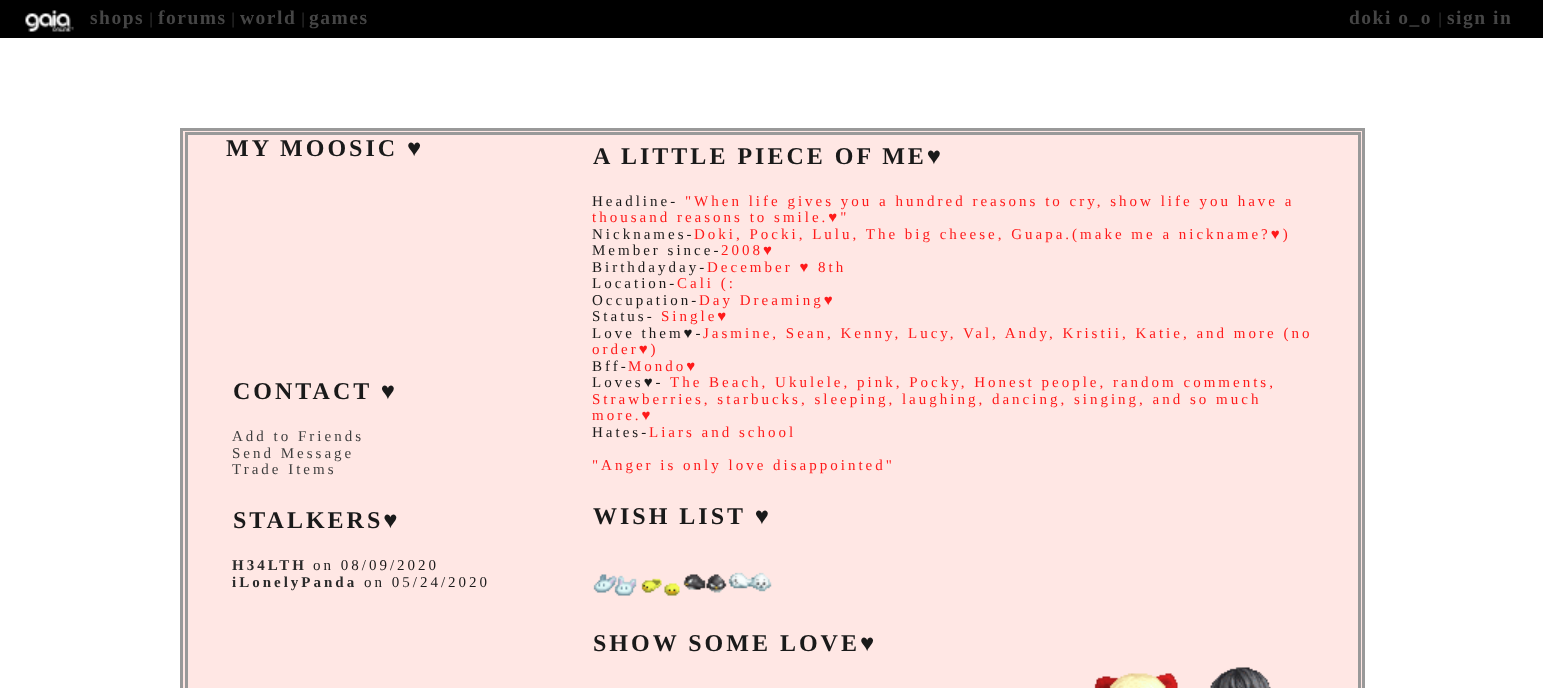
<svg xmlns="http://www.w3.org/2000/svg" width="1543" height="688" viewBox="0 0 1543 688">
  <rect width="100%" height="100%" fill="rgb(255,255,255)"/>
  <rect x="0" y="0" width="1543" height="38" fill="rgb(0,0,0)"/>
  <image x="25" y="10" width="49" height="22" href="pic1.png"/>
  <text x="90" y="24" font-family="Liberation Serif" font-size="19.5" font-weight="bold" letter-spacing="1.5" fill="rgb(69,69,69)">shops</text>
  <text x="149" y="24" font-family="Liberation Sans" font-size="16" fill="rgb(42,42,42)">|</text>
  <text x="158" y="24" font-family="Liberation Serif" font-size="19.5" font-weight="bold" letter-spacing="1.5" fill="rgb(69,69,69)">forums</text>
  <text x="231" y="24" font-family="Liberation Sans" font-size="16" fill="rgb(42,42,42)">|</text>
  <text x="240" y="24" font-family="Liberation Serif" font-size="19.5" font-weight="bold" letter-spacing="1.5" fill="rgb(69,69,69)">world</text>
  <text x="301" y="24" font-family="Liberation Sans" font-size="16" fill="rgb(42,42,42)">|</text>
  <g font-family="Liberation Serif" font-size="19.5" font-weight="bold" letter-spacing="1.5" fill="rgb(69,69,69)">
    <text x="309" y="24">games</text>
    <text x="1349" y="24">doki o_o</text>
  </g>
  <text x="1438" y="24" font-family="Liberation Sans" font-size="16" fill="rgb(42,42,42)">|</text>
  <text x="1447" y="24" font-family="Liberation Serif" font-size="19.5" font-weight="bold" letter-spacing="1.5" fill="rgb(69,69,69)">sign in</text>
  <rect x="181.5" y="129.5" width="1182" height="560" fill="rgb(255,231,228)" stroke="rgb(153,153,153)" stroke-width="3"/>
  <rect x="186.5" y="133.5" width="1173" height="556" fill="none" stroke="rgb(153,153,153)" stroke-width="3"/>
  <g font-family="Liberation Serif" font-size="24" font-weight="bold" letter-spacing="3" fill="rgb(26,26,26)">
    <text x="226" y="156">MY MOOSIC ♥</text>
    <text x="233" y="399">CONTACT ♥</text>
  </g>
  <g font-family="Liberation Serif" font-size="15" letter-spacing="3" fill="rgb(62,62,62)">
    <text>
      <tspan x="232" y="441">Add to Friends</tspan>
      <tspan x="232" y="458">Send Message</tspan>
      <tspan x="232" y="474">Trade Items</tspan>
    </text>
  </g>
  <text x="233" y="528" font-family="Liberation Serif" font-size="24" font-weight="bold" letter-spacing="3" fill="rgb(26,26,26)">STALKERS♥</text>
  <text x="232" y="570" font-family="Liberation Serif" font-size="15" font-weight="bold" letter-spacing="3" fill="rgb(42,42,42)">H34LTH</text>
  <text x="313" y="570" font-family="Liberation Serif" font-size="15" letter-spacing="3" fill="rgb(26,26,26)">on 08/09/2020</text>
  <text x="232" y="587" font-family="Liberation Serif" font-size="15" font-weight="bold" letter-spacing="3" fill="rgb(42,42,42)">iLonelyPanda</text>
  <text x="364" y="587" font-family="Liberation Serif" font-size="15" letter-spacing="3" fill="rgb(26,26,26)">on 05/24/2020</text>
  <text x="593" y="164" font-family="Liberation Serif" font-size="24" font-weight="bold" letter-spacing="3" fill="rgb(26,26,26)">A LITTLE PIECE OF ME♥</text>
  <text x="592" y="206" font-family="Liberation Serif" font-size="15" letter-spacing="3" fill="rgb(26,26,26)">Headline-</text>
  <g font-family="Liberation Serif" font-size="15" letter-spacing="3" fill="rgb(255,26,26)">
    <text x="685" y="206">"When life gives you a hundred reasons to cry, show life you have a</text>
    <text x="592" y="222">thousand reasons to smile.♥"</text>
  </g>
  <text x="592" y="239" font-family="Liberation Serif" font-size="15" letter-spacing="3" fill="rgb(26,26,26)">Nicknames-</text>
  <text x="694" y="239" font-family="Liberation Serif" font-size="15" letter-spacing="3" fill="rgb(255,26,26)">Doki, Pocki, Lulu, The big cheese, Guapa.(make me a nickname?♥)</text>
  <text x="592" y="255" font-family="Liberation Serif" font-size="15" letter-spacing="3" fill="rgb(26,26,26)">Member since-</text>
  <text x="721" y="255" font-family="Liberation Serif" font-size="15" letter-spacing="3" fill="rgb(255,26,26)">2008♥</text>
  <text x="592" y="272" font-family="Liberation Serif" font-size="15" letter-spacing="3" fill="rgb(26,26,26)">Birthdayday-</text>
  <text x="707" y="272" font-family="Liberation Serif" font-size="15" letter-spacing="3" fill="rgb(255,26,26)">December ♥ 8th</text>
  <text x="592" y="288" font-family="Liberation Serif" font-size="15" letter-spacing="3" fill="rgb(26,26,26)">Location-</text>
  <text x="677" y="288" font-family="Liberation Serif" font-size="15" letter-spacing="3" fill="rgb(255,26,26)">Cali (:</text>
  <text x="592" y="305" font-family="Liberation Serif" font-size="15" letter-spacing="3" fill="rgb(26,26,26)">Occupation-</text>
  <text x="699" y="305" font-family="Liberation Serif" font-size="15" letter-spacing="3" fill="rgb(255,26,26)">Day Dreaming♥</text>
  <text x="592" y="321" font-family="Liberation Serif" font-size="15" letter-spacing="3" fill="rgb(26,26,26)">Status-</text>
  <text x="661" y="321" font-family="Liberation Serif" font-size="15" letter-spacing="3" fill="rgb(255,26,26)">Single♥</text>
  <text x="592" y="338" font-family="Liberation Serif" font-size="15" letter-spacing="3" fill="rgb(26,26,26)">Love them♥-</text>
  <g font-family="Liberation Serif" font-size="15" letter-spacing="3" fill="rgb(255,26,26)">
    <text x="703" y="338">Jasmine, Sean, Kenny, Lucy, Val, Andy, Kristii, Katie, and more (no</text>
    <text x="592" y="354">order♥)</text>
  </g>
  <text x="592" y="371" font-family="Liberation Serif" font-size="15" letter-spacing="3" fill="rgb(26,26,26)">Bff-</text>
  <text x="628" y="371" font-family="Liberation Serif" font-size="15" letter-spacing="3" fill="rgb(255,26,26)">Mondo♥</text>
  <text x="592" y="387" font-family="Liberation Serif" font-size="15" letter-spacing="3" fill="rgb(26,26,26)">Loves♥-</text>
  <g font-family="Liberation Serif" font-size="15" letter-spacing="3" fill="rgb(255,26,26)">
    <text x="670" y="387">The Beach, Ukulele, pink, Pocky, Honest people, random comments,</text>
    <text>
      <tspan x="592" y="404">Strawberries, starbucks, sleeping, laughing, dancing, singing, and so much</tspan>
      <tspan x="592" y="420">more.♥</tspan>
    </text>
  </g>
  <text x="592" y="437" font-family="Liberation Serif" font-size="15" letter-spacing="3" fill="rgb(26,26,26)">Hates-</text>
  <g font-family="Liberation Serif" font-size="15" letter-spacing="3" fill="rgb(255,26,26)">
    <text x="649" y="437">Liars and school</text>
    <text x="592" y="470">"Anger is only love disappointed"</text>
  </g>
  <text x="593" y="524" font-family="Liberation Serif" font-size="24" font-weight="bold" letter-spacing="3" fill="rgb(26,26,26)">WISH LIST ♥</text>
  <image x="593" y="574" width="44" height="22" href="pic2.png"/>
  <image x="641" y="578" width="39" height="18" href="pic3.png"/>
  <image x="683" y="574" width="44" height="19" href="pic4.png"/>
  <image x="728" y="572" width="44" height="20" href="pic5.png"/>
  <text x="593" y="651" font-family="Liberation Serif" font-size="24" font-weight="bold" letter-spacing="3" fill="rgb(26,26,26)">SHOW SOME LOVE♥</text>
  <image x="1094" y="673" width="84" height="15" href="pic6.png"/>
  <image x="1210" y="667" width="61" height="21" href="pic7.png"/>
</svg>
